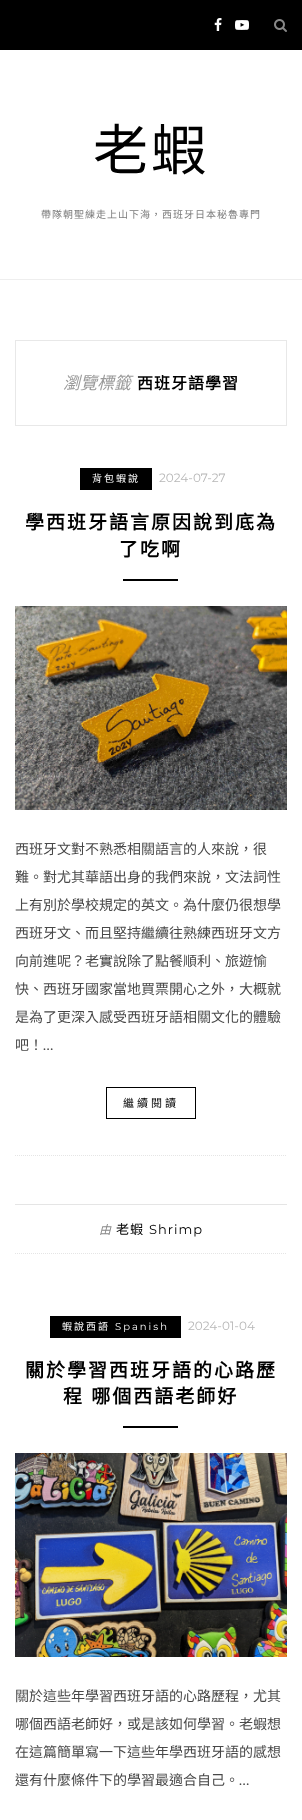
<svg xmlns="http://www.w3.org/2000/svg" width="302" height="1820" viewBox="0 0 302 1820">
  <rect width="100%" height="100%" fill="rgb(255,255,255)"/>
  <rect x="0" y="0" width="302" height="50" fill="rgb(0,0,0)"/>
  <image x="214" y="18" width="8" height="13" href="pic1.png"/>
  <image x="235" y="20" width="14" height="10" href="pic2.png"/>
  <image x="274" y="19" width="13" height="13" href="pic3.png"/>
  <rect x="0" y="279" width="302" height="1" fill="rgb(238,238,238)"/>
  <text x="93" y="170" font-family="Noto Sans CJK TC" font-size="55" letter-spacing="3" fill="rgb(0,0,0)">老蝦</text>
  <text x="41" y="218" font-family="Noto Sans CJK TC" font-size="10" letter-spacing="1" fill="rgb(123,123,123)">帶隊朝聖練走上山下海，西班牙日本秘魯專門</text>
  <rect x="15.5" y="340.5" width="271" height="85" fill="none" stroke="rgb(232,232,232)"/>
  <text x="63" y="389" font-family="Noto Sans CJK TC" font-size="17" font-style="italic" fill="rgb(153,153,153)">瀏覽標籤</text>
  <text x="137" y="389" font-family="Noto Sans CJK TC" font-size="16" font-weight="bold" letter-spacing="1" fill="rgb(0,0,0)">西班牙語學習</text>
  <rect x="80" y="468" width="72" height="22" fill="rgb(0,0,0)"/>
  <text x="92" y="482" font-family="Noto Sans CJK TC" font-size="10" letter-spacing="2" fill="rgb(255,255,255)">背包蝦說</text>
  <text x="159" y="482" font-family="Montserrat" font-size="12" fill="rgb(183,183,183)">2024-07-27</text>
  <g font-family="Noto Sans CJK TC" font-size="19" font-weight="bold" letter-spacing="2" fill="rgb(0,0,0)">
    <text x="25" y="529">學西班牙語言原因說到底為</text>
    <text x="119" y="556">了吃啊</text>
  </g>
  <rect x="123" y="579" width="55" height="2" fill="rgb(0,0,0)"/>
  <image x="15" y="606" width="272" height="204" href="pic4.png"/>
  <g font-family="Noto Sans CJK TC" font-size="14" fill="rgb(72,72,72)">
    <text x="15" y="854">西班牙文對不熟悉相關語言的人來說，很</text>
    <text x="15" y="882">難。對尤其華語出身的我們來說，文法詞性</text>
    <text x="15" y="910">上有別於學校規定的英文。為什麼仍很想學</text>
    <text x="15" y="938">西班牙文、而且堅持繼續往熟練西班牙文方</text>
    <text x="15" y="966">向前進呢？老實說除了點餐順利、旅遊愉</text>
    <text x="15" y="994">快、西班牙國家當地買票開心之外，大概就</text>
    <text x="15" y="1022">是為了更深入感受西班牙語相關文化的體驗</text>
    <text x="15" y="1050">吧！</text>
  </g>
  <text x="43" y="1050" font-family="Lato" font-size="14" fill="rgb(72,72,72)">…</text>
  <rect x="106.5" y="1087.5" width="89" height="31" fill="none" stroke="rgb(0,0,0)"/>
  <text x="123" y="1107" font-family="Noto Sans CJK TC" font-size="11" letter-spacing="3" fill="rgb(0,0,0)">繼續閱讀</text>
  <path d="M15 1155.5H287" fill="none" stroke="rgb(229,229,229)" stroke-dasharray="1 1"/>
  <path d="M15 1253.5H287" fill="none" stroke="rgb(229,229,229)" stroke-dasharray="1 1"/>
  <rect x="15" y="1204" width="272" height="1" fill="rgb(229,229,229)"/>
  <text x="99" y="1234" font-family="Noto Sans CJK TC" font-size="12" font-style="italic" fill="rgb(136,136,136)">由</text>
  <text x="116" y="1234" font-family="Noto Sans CJK TC" font-size="13" letter-spacing="1" fill="rgb(0,0,0)">老蝦</text>
  <text x="149" y="1234" font-family="Montserrat" font-size="13" letter-spacing="1" fill="rgb(0,0,0)">Shrimp</text>
  <rect x="50" y="1316" width="131" height="22" fill="rgb(0,0,0)"/>
  <text x="62" y="1330" font-family="Noto Sans CJK TC" font-size="10" letter-spacing="2" fill="rgb(255,255,255)">蝦說西語</text>
  <text x="115" y="1330" font-family="Montserrat" font-size="10" letter-spacing="2" fill="rgb(255,255,255)">Spanish</text>
  <text x="188" y="1330" font-family="Montserrat" font-size="12" fill="rgb(183,183,183)">2024-01-04</text>
  <g font-family="Noto Sans CJK TC" font-size="19" font-weight="bold" letter-spacing="2" fill="rgb(0,0,0)">
    <text x="25" y="1377">關於學習西班牙語的心路歷</text>
    <text x="63" y="1403" word-spacing="1">程 哪個西語老師好</text>
  </g>
  <rect x="123" y="1426" width="55" height="2" fill="rgb(0,0,0)"/>
  <image x="15" y="1453" width="272" height="204" href="pic5.png"/>
  <g font-family="Noto Sans CJK TC" font-size="14" fill="rgb(72,72,72)">
    <text x="15" y="1701">關於這些年學習西班牙語的心路歷程，尤其</text>
    <text x="15" y="1729">哪個西語老師好，或是該如何學習。老蝦想</text>
    <text x="15" y="1757">在這篇簡單寫一下這些年學西班牙語的感想</text>
    <text x="15" y="1785">還有什麼條件下的學習最適合自己。</text>
  </g>
  <text x="239" y="1785" font-family="Lato" font-size="14" fill="rgb(72,72,72)">…</text>
</svg>
